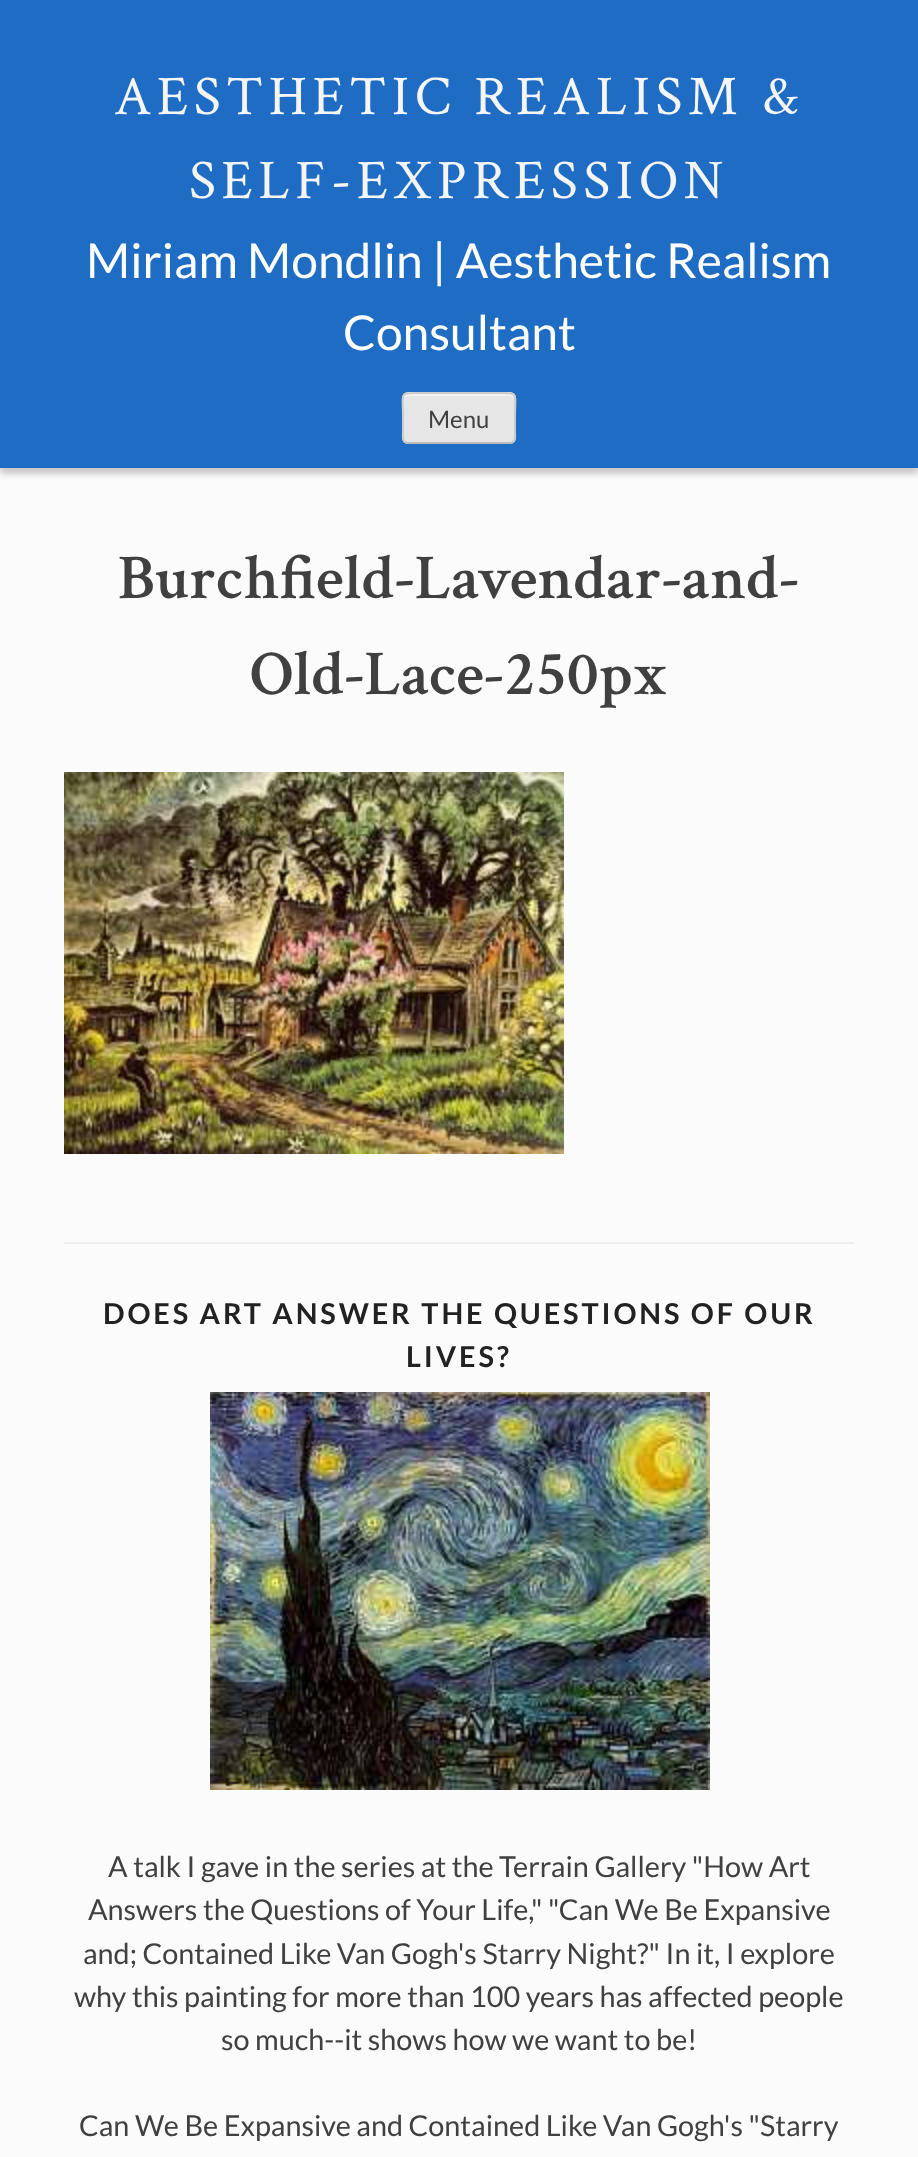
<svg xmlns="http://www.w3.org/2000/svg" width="918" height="2157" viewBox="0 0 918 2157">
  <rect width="100%" height="100%" fill="rgb(251,251,251)"/>
  <rect x="0" y="6" width="918" height="468" fill="rgba(0,0,0,0.2)" filter="blur(3px)"/>
  <rect x="0" y="0" width="918" height="468" fill="rgb(31,108,196)"/>
  <g font-family="Crimson Text" font-size="56" letter-spacing="5.6" fill="rgb(245,245,245)">
    <text x="114" y="114">AESTHETIC REALISM &amp;</text>
    <text x="189" y="198">SELF-EXPRESSION</text>
  </g>
  <g font-family="Lato" font-size="48" fill="rgb(255,255,255)">
    <text x="86" y="278">Miriam Mondlin | Aesthetic Realism</text>
    <text x="343" y="350">Consultant</text>
  </g>
  <rect x="402" y="392" width="114" height="52" rx="6" fill="rgb(230,230,230)"/>
  <path d="M408 396H510C512 396 514 398 514 400V398C514 396 512 394 510 394H408C406 394 404 396 404 398V400C404 398 406 396 408 396Z" fill="rgb(243,243,243)"/>
  <path d="M513.5 441.5C512.5 442.5 511.5 443 510 443H408C406.5 443 405.5 442.5 404.5 441.5" fill="none" stroke="rgb(187,187,187)" stroke-width="2"/>
  <path d="M404.5 441.5C402 439 403 434 403 431.5V418C403 390 398 393 425 393H493C520 393 515 390 515 418V431.5C515 434 516 439 513.5 441.5" fill="none" stroke="rgb(204,204,204)" stroke-width="2"/>
  <text x="428" y="428" font-family="Lato" font-size="24" fill="rgb(64,64,64)">Menu</text>
  <g font-family="Crimson Text" font-size="64" font-weight="600" fill="rgb(64,64,64)">
    <text x="118" y="598">Burchfield-Lavendar-and-</text>
    <text x="250" y="694">Old-Lace-250px</text>
  </g>
  <image x="64" y="772" width="500" height="382" href="pic1.png"/>
  <rect x="64" y="1242" width="790" height="2" fill="rgb(238,238,238)"/>
  <g font-family="Lato" font-size="28.8" font-weight="bold" letter-spacing="2.9" fill="rgb(34,34,34)">
    <text x="103" y="1324">DOES ART ANSWER THE QUESTIONS OF OUR</text>
    <text x="406" y="1367">LIVES?</text>
  </g>
  <image x="210" y="1392" width="500" height="398" href="pic2.png"/>
  <g font-family="Lato" font-size="28.8" fill="rgb(64,64,64)">
    <text x="108" y="1877">A talk I gave in the series at the Terrain Gallery "How Art</text>
    <text x="88" y="1920">Answers the Questions of Your Life,"</text>
    <text x="548" y="1920">"Can We Be Expansive</text>
    <text x="83" y="1964">and; Contained Like Van Gogh's Starry Night?" In it, I explore</text>
    <text x="74" y="2007">why this painting for more than 100 years has affected people</text>
    <text x="221" y="2050">so much--it shows how we want to be!</text>
    <text x="79" y="2136">Can We Be Expansive and Contained Like Van Gogh's "Starry</text>
  </g>
</svg>
